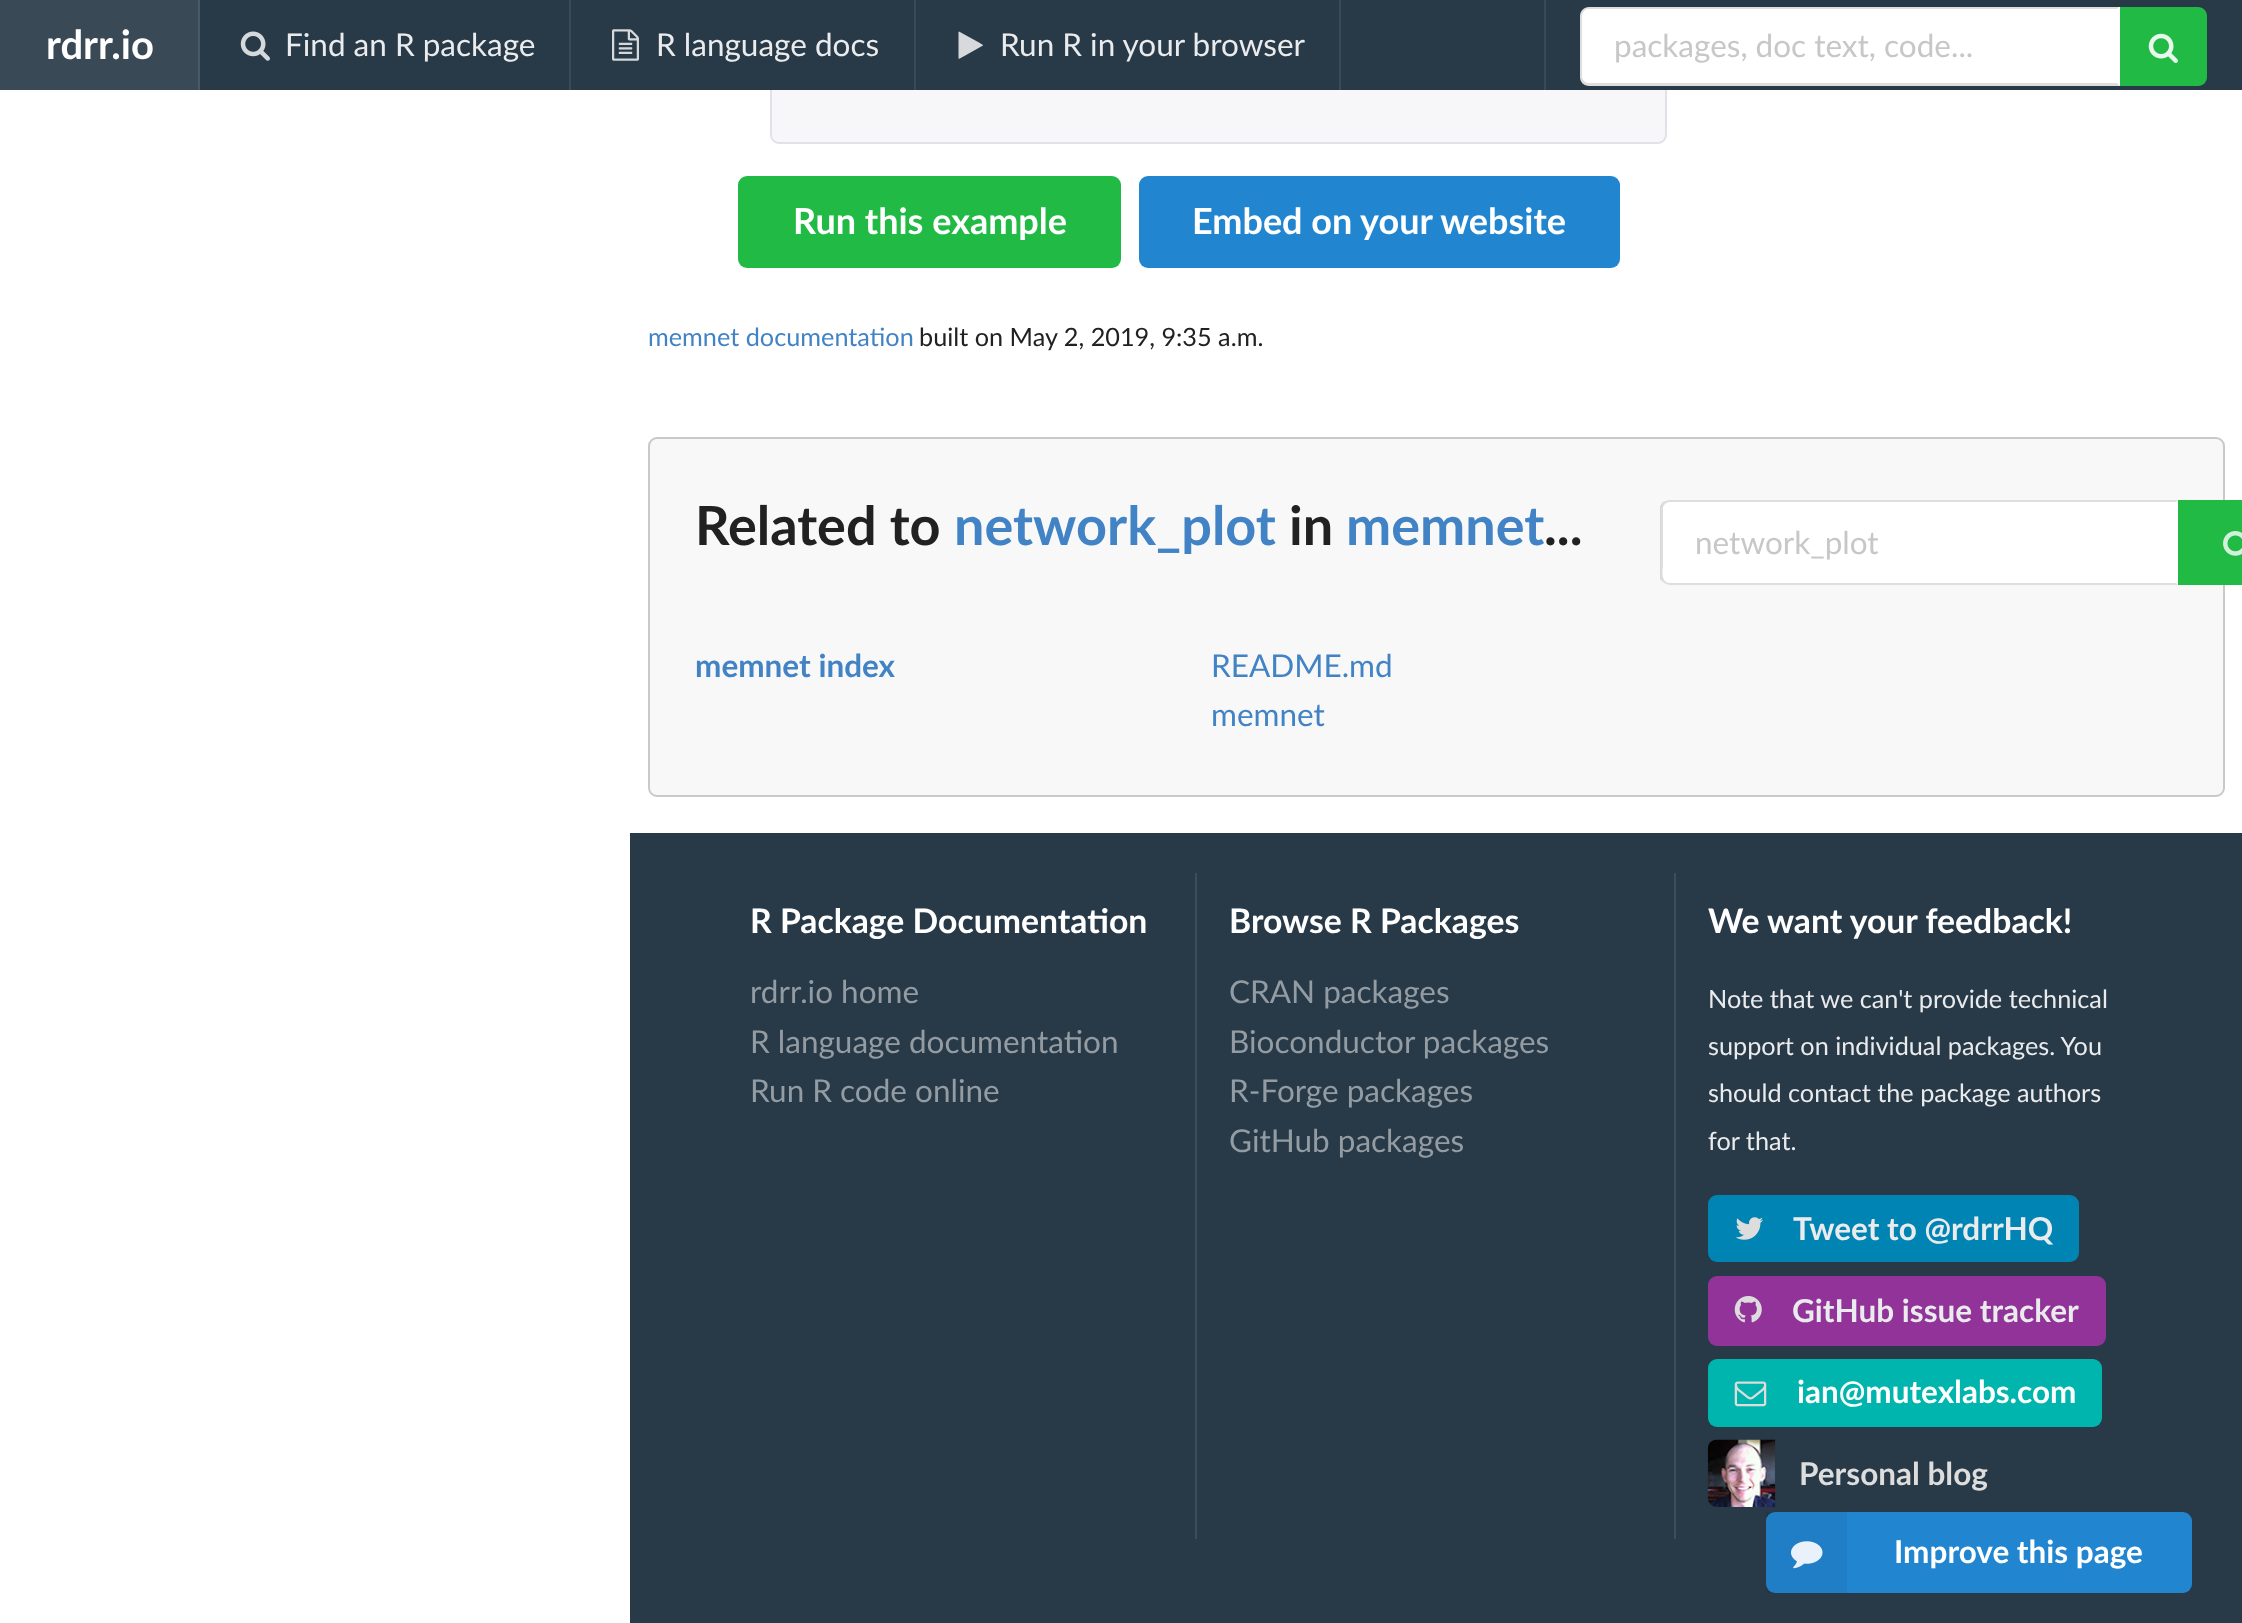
<svg xmlns="http://www.w3.org/2000/svg" width="2242" height="1623" viewBox="0 0 2242 1623">
  <rect width="100%" height="100%" fill="rgb(255,255,255)"/>
  <rect x="771" y="-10" width="895" height="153" rx="8" fill="rgb(247,247,249)" stroke="rgb(225,225,232)" stroke-width="2"/>
  <rect x="200" y="0" width="2042" height="90" fill="rgb(40,57,71)"/>
  <rect x="0" y="0" width="198" height="90" fill="rgb(57,73,86)"/>
  <text x="46" y="59" font-family="Lato" font-size="40" font-weight="bold" fill="rgb(255,255,255)">rdrr.io</text>
  <rect x="198" y="0" width="2" height="90" fill="rgb(73,88,100)"/>
  <image x="240" y="31" width="30" height="30" href="pic1.png"/>
  <text x="285" y="56" font-family="Lato" font-size="31.5" fill="rgb(234,235,237)">Find an R package</text>
  <rect x="569" y="0" width="2" height="90" fill="rgb(57,73,86)"/>
  <image x="612" y="29" width="27" height="32" href="pic2.png"/>
  <text x="656" y="56" font-family="Lato" font-size="31.5" fill="rgb(234,235,237)">R language docs</text>
  <rect x="914" y="0" width="2" height="90" fill="rgb(57,73,86)"/>
  <path d="M983 45.5L963.5 56.5C963 56.5 959.5 59.5 958.5 58.5V32L959 31.5L979 42.5L983 45Z" fill="rgb(215,217,220)"/>
  <text x="1000" y="56" font-family="Lato" font-size="31.5" fill="rgb(234,235,237)">Run R in your browser</text>
  <rect x="1339" y="0" width="2" height="90" fill="rgb(57,73,86)"/>
  <rect x="1544" y="0" width="2" height="90" fill="rgb(57,73,86)"/>
  <path d="M1589 7H2120V86H1589C1584 86 1580 82 1580 77V16C1580 11 1584 7 1589 7Z" fill="rgb(255,255,255)"/>
  <path d="M1588 7C1586 7 1584 8 1582 10L1584 11C1585 10 1586 9 1588 9H2117L2119 7Z" fill="rgba(34,36,38,0.15)"/>
  <path d="M2120 86H1586L1582 83L1584 81C1585 82 1587 83 1588 83H2117Z" fill="rgba(34,36,38,0.15)"/>
  <path d="M1582 10C1581 11 1580 14 1580 16V76C1580 78 1581 81 1582 83L1584 81C1583 80 1582 78 1582 76V16C1582 14 1583 12 1584 11Z" fill="rgba(34,36,38,0.15)"/>
  <text x="1614" y="57" font-family="Lato" font-size="31.5" fill="rgb(199,199,199)">packages, doc text, code...</text>
  <path d="M2120 7H2198C2203 7 2207 11 2207 16V77C2207 82 2203 86 2198 86H2120Z" fill="rgb(33,186,69)"/>
  <image x="2148" y="33" width="30" height="30" href="pic3.png"/>
  <rect x="738" y="176" width="383" height="92" rx="9" fill="rgb(33,186,69)"/>
  <text x="793" y="234" font-family="Lato" font-size="36" font-weight="bold" fill="rgb(255,255,255)">Run this example</text>
  <rect x="1139" y="176" width="481" height="92" rx="9" fill="rgb(33,133,208)"/>
  <text x="1192" y="234" font-family="Lato" font-size="36" font-weight="bold" fill="rgb(255,255,255)">Embed on your website</text>
  <text x="648" y="346" font-family="Lato" font-size="25.25" fill="rgb(65,131,196)">memnet documentation</text>
  <text x="919" y="346" font-family="Lato" font-size="25.25" fill="rgb(33,33,33)">built on May 2, 2019, 9:35 a.m.</text>
  <rect x="648" y="437" width="1577" height="360" rx="9" fill="rgb(248,248,249)"/>
  <rect x="649" y="438" width="1575" height="358" rx="8" fill="none" stroke="rgba(34,36,38,0.22)" stroke-width="2"/>
  <text x="695" y="545" font-family="Lato" font-size="54" font-weight="bold" fill="rgb(33,33,33)">Related to</text>
  <text x="954" y="545" font-family="Lato" font-size="54" font-weight="bold" fill="rgb(65,131,196)">network_plot</text>
  <text x="1289" y="545" font-family="Lato" font-size="54" font-weight="bold" fill="rgb(33,33,33)">in</text>
  <text x="1346" y="545" font-family="Lato" font-size="54" font-weight="bold" fill="rgb(65,131,196)">memnet</text>
  <text x="1544" y="545" font-family="Lato" font-size="54" font-weight="bold" fill="rgb(33,33,33)">...</text>
  <path d="M1670 500H2178V585H1670C1665 585 1661 581 1661 576V509C1661 504 1665 500 1670 500Z" fill="rgb(255,255,255)"/>
  <path d="M1670 500C1668 500 1665 501 1663 502L1665 504C1666 503 1668 502 1670 502H2176L2178 500Z" fill="rgba(34,36,38,0.15)"/>
  <path d="M2178 585L2176 583H1670C1668 583 1666 582 1665 581L1663 582C1665 584 1668 585 1670 585Z" fill="rgba(34,36,38,0.15)"/>
  <path d="M1660 506L1663 502L1665 504L1663 507V565C1663 568 1661 577 1665 581L1663 582L1660 579Z" fill="rgba(34,36,38,0.15)"/>
  <text x="1695" y="554" font-family="Lato" font-size="31.5" fill="rgb(199,199,199)">network_plot</text>
  <rect x="2178" y="500" width="64" height="85" fill="rgb(33,186,69)"/>
  <image x="2223" y="531" width="19" height="25" href="pic4.png"/>
  <text x="695" y="677" font-family="Lato" font-size="31.5" font-weight="bold" fill="rgb(65,131,196)">memnet index</text>
  <g font-family="Lato" font-size="31.5" fill="rgb(65,131,196)">
    <text>
      <tspan x="1211" y="677">README.md</tspan>
      <tspan x="1211" y="726">memnet</tspan>
    </text>
  </g>
  <rect x="630" y="833" width="1612" height="790" fill="rgb(40,57,71)"/>
  <text x="750" y="933" font-family="Lato" font-size="33.75" font-weight="bold" fill="rgb(255,255,255)">R Package Documentation</text>
  <g font-family="Lato" font-size="31.5" fill="rgb(148,156,163)">
    <text>
      <tspan x="750" y="1003">rdrr.io home</tspan>
      <tspan x="750" y="1053">R language documentation</tspan>
      <tspan x="750" y="1102">Run R code online</tspan>
    </text>
  </g>
  <rect x="1195" y="873" width="2" height="666" fill="rgb(62,77,89)"/>
  <text x="1229" y="933" font-family="Lato" font-size="33.75" font-weight="bold" fill="rgb(255,255,255)">Browse R Packages</text>
  <g font-family="Lato" font-size="31.5" fill="rgb(148,156,163)">
    <text>
      <tspan x="1229" y="1003">CRAN packages</tspan>
      <tspan x="1229" y="1053">Bioconductor packages</tspan>
      <tspan x="1229" y="1102">R-Forge packages</tspan>
      <tspan x="1229" y="1152">GitHub packages</tspan>
    </text>
  </g>
  <rect x="1674" y="873" width="2" height="666" fill="rgb(62,77,89)"/>
  <text x="1708" y="933" font-family="Lato" font-size="33.75" font-weight="bold" fill="rgb(255,255,255)">We want your feedback!</text>
  <g font-family="Lato" font-size="25.25" fill="rgb(234,235,237)">
    <text>
      <tspan x="1708" y="1008">Note that we can't provide technical</tspan>
      <tspan x="1708" y="1055">support on individual packages. You</tspan>
      <tspan x="1708" y="1102">should contact the package authors</tspan>
      <tspan x="1708" y="1150">for that.</tspan>
    </text>
  </g>
  <rect x="1708" y="1195" width="371" height="67" rx="9" fill="rgb(0,132,180)"/>
  <image x="1735" y="1217" width="28" height="23" href="pic5.png"/>
  <text x="1793" y="1240" font-family="Lato" font-size="31.5" font-weight="bold" fill="rgb(234,235,237)">Tweet to @rdrrHQ</text>
  <rect x="1708" y="1276" width="398" height="70" rx="9" fill="rgb(145,51,153)"/>
  <image x="1734" y="1296" width="28" height="27" href="pic6.png"/>
  <text x="1792" y="1322" font-family="Lato" font-size="31.5" font-weight="bold" fill="rgb(234,235,237)">GitHub issue tracker</text>
  <rect x="1708" y="1359" width="394" height="68" rx="9" fill="rgb(0,181,173)"/>
  <image x="1734" y="1381" width="33" height="26" href="pic7.png"/>
  <text x="1797" y="1403" font-family="Lato" font-size="31.5" font-weight="bold" fill="rgb(255,255,255)">ian@mutexlabs.com</text>
  <image x="1707" y="1439" width="69" height="68" href="pic8.png"/>
  <text x="1799" y="1485" font-family="Lato" font-size="31.5" font-weight="bold" fill="rgb(221,221,221)">Personal blog</text>
  <rect x="1766" y="1512" width="426" height="81" rx="9" fill="rgb(33,133,208)"/>
  <rect x="1766" y="1512" width="81" height="81" fill="rgba(0,0,0,0.05)"/>
  <image x="1791" y="1541" width="32" height="28" href="pic9.png"/>
  <text x="1894" y="1563" font-family="Lato" font-size="31.5" font-weight="bold" fill="rgb(255,255,255)">Improve this page</text>
</svg>
